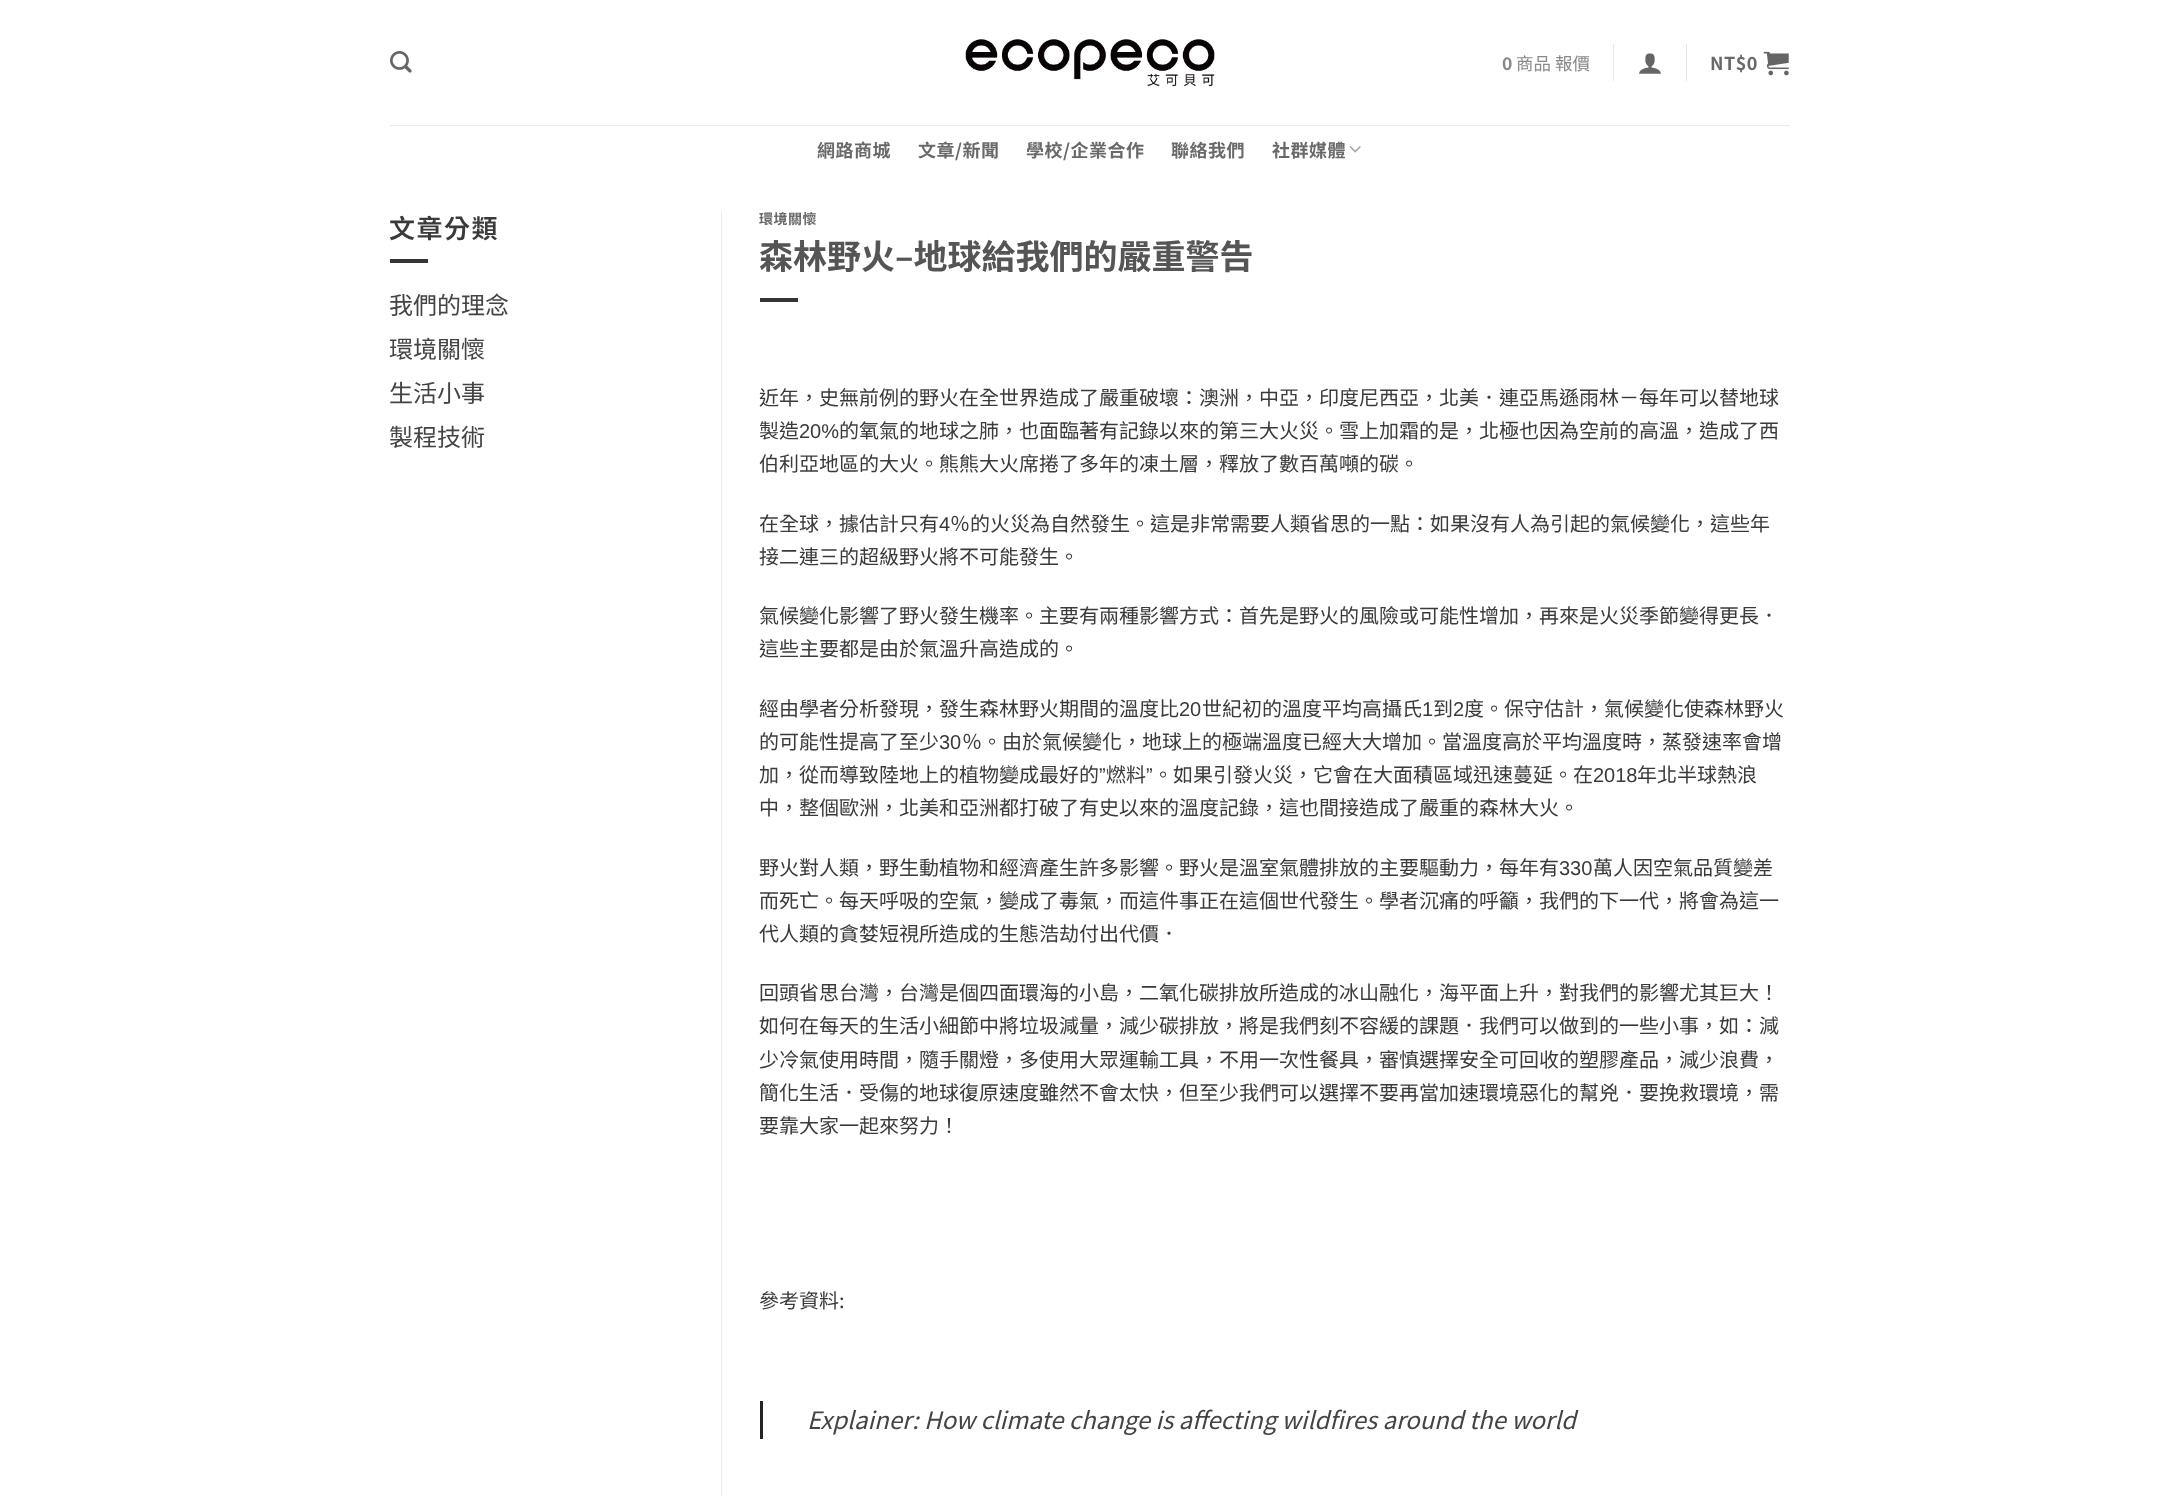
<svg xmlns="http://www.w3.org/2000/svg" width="2178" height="1496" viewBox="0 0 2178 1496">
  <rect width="100%" height="100%" fill="rgb(255,255,255)"/>
  <image x="390" y="51" width="22" height="22" href="pic1.png"/>
  <image x="965" y="39" width="250" height="48" href="pic2.png"/>
  <text x="1502" y="70" font-family="Noto Sans TC" font-size="17.5" font-weight="bold" fill="rgb(137,137,137)">0</text>
  <text x="1516" y="70" font-family="Noto Sans TC" font-size="17.5" fill="rgb(137,137,137)">商品 報價</text>
  <rect x="1613" y="44" width="1" height="37" fill="rgb(230,230,230)"/>
  <image x="1639" y="53" width="22" height="21" href="pic3.png"/>
  <rect x="1686" y="44" width="1" height="37" fill="rgb(230,230,230)"/>
  <text x="1710" y="70" font-family="Noto Sans TC" font-size="18" font-weight="bold" letter-spacing="0.5" fill="rgb(105,105,105)">NT$0</text>
  <image x="1763" y="51" width="26" height="25" href="pic4.png"/>
  <rect x="390" y="125" width="1400" height="1" fill="rgb(235,235,235)"/>
  <g font-family="Noto Sans TC" font-size="18" font-weight="bold" letter-spacing="0.5" fill="rgb(105,105,105)">
    <text x="817" y="157">網路商城</text>
    <text x="918" y="157">文章/新聞</text>
    <text x="1026" y="157">學校/企業合作</text>
    <text x="1171" y="157">聯絡我們</text>
    <text x="1272" y="157">社群媒體</text>
  </g>
  <image x="1349" y="146" width="12" height="7" href="pic5.png"/>
  <text x="389" y="238" font-family="Noto Sans TC" font-size="26" font-weight="600" letter-spacing="1.5" fill="rgb(58,58,58)">文章分類</text>
  <rect x="390" y="259" width="38" height="4" fill="rgb(53,53,53)"/>
  <g font-family="Noto Sans TC" font-size="24" fill="rgb(68,68,68)">
    <text>
      <tspan x="389" y="314">我們的理念</tspan>
      <tspan x="389" y="358">環境關懷</tspan>
      <tspan x="389" y="402">生活小事</tspan>
      <tspan x="389" y="446">製程技術</tspan>
    </text>
  </g>
  <rect x="721" y="211" width="1" height="1285" fill="rgb(236,236,236)"/>
  <text x="759" y="224" font-family="Noto Sans TC" font-size="14" font-weight="bold" letter-spacing="0.5" fill="rgb(105,105,105)">環境關懷</text>
  <text x="759" y="269" font-family="Noto Sans TC" font-size="34" font-weight="bold" fill="rgb(85,85,85)">森林野火–地球給我們的嚴重警告</text>
  <rect x="760" y="298" width="38" height="4" fill="rgb(53,53,53)"/>
  <g font-family="Noto Sans CJK TC" font-size="20" fill="rgb(58,58,58)">
    <text>
      <tspan x="759" y="405">近年，史無前例的野火在全世界造成了嚴重破壞：澳洲，中亞，印度尼西亞，北美．連亞馬遜雨林－每年可以替地球</tspan>
      <tspan x="759" y="438">製造</tspan>
    </text>
  </g>
  <text x="799" y="438" font-family="Liberation Sans" font-size="20" fill="rgb(58,58,58)">20%</text>
  <g font-family="Noto Sans CJK TC" font-size="20" fill="rgb(58,58,58)">
    <text x="839" y="438">的氧氣的地球之肺，也面臨著有記錄以來的第三大火災。雪上加霜的是，北極也因為空前的高溫，造成了西</text>
    <text x="759" y="471">伯利亞地區的大火。熊熊大火席捲了多年的凍土層，釋放了數百萬噸的碳。</text>
    <text x="759" y="531">在全球，據估計只有</text>
  </g>
  <text x="939" y="531" font-family="Liberation Sans" font-size="20" fill="rgb(58,58,58)">4</text>
  <g font-family="Noto Sans CJK TC" font-size="20" fill="rgb(58,58,58)">
    <text x="950" y="531">％的火災為自然發生。這是非常需要人類省思的一點：如果沒有人為引起的氣候變化，這些年</text>
    <text x="759" y="564">接二連三的超級野火將不可能發生。</text>
    <text>
      <tspan x="759" y="623">氣候變化影響了野火發生機率。主要有兩種影響方式：首先是野火的風險或可能性增加，再來是火災季節變得更長．</tspan>
      <tspan x="759" y="656">這些主要都是由於氣溫升高造成的。</tspan>
    </text>
    <text x="759" y="716">經由學者分析發現，發生森林野火期間的溫度比</text>
  </g>
  <text x="1179" y="716" font-family="Liberation Sans" font-size="20" fill="rgb(58,58,58)">20</text>
  <text x="1202" y="716" font-family="Noto Sans CJK TC" font-size="20" fill="rgb(58,58,58)">世紀初的溫度平均高攝氏</text>
  <text x="1422" y="716" font-family="Liberation Sans" font-size="20" fill="rgb(58,58,58)">1</text>
  <text x="1433" y="716" font-family="Noto Sans CJK TC" font-size="20" fill="rgb(58,58,58)">到</text>
  <text x="1453" y="716" font-family="Liberation Sans" font-size="20" fill="rgb(58,58,58)">2</text>
  <g font-family="Noto Sans CJK TC" font-size="20" fill="rgb(58,58,58)">
    <text x="1464" y="716">度。保守估計，氣候變化使森林野火</text>
    <text x="759" y="749">的可能性提高了至少</text>
  </g>
  <text x="939" y="749" font-family="Liberation Sans" font-size="20" fill="rgb(58,58,58)">30</text>
  <g font-family="Noto Sans CJK TC" font-size="20" fill="rgb(58,58,58)">
    <text x="962" y="749">％。由於氣候變化，地球上的極端溫度已經大大增加。當溫度高於平均溫度時，蒸發速率會增</text>
    <text x="759" y="782">加，從而導致陸地上的植物變成最好的</text>
  </g>
  <text x="1099" y="782" font-family="Liberation Sans" font-size="20" fill="rgb(58,58,58)">”</text>
  <text x="1106" y="782" font-family="Noto Sans CJK TC" font-size="20" fill="rgb(58,58,58)">燃料</text>
  <text x="1146" y="782" font-family="Liberation Sans" font-size="20" fill="rgb(58,58,58)">”</text>
  <text x="1153" y="782" font-family="Noto Sans CJK TC" font-size="20" fill="rgb(58,58,58)">。如果引發火災，它會在大面積區域迅速蔓延。在</text>
  <text x="1593" y="782" font-family="Liberation Sans" font-size="20" fill="rgb(58,58,58)">2018</text>
  <g font-family="Noto Sans CJK TC" font-size="20" fill="rgb(58,58,58)">
    <text x="1637" y="782">年北半球熱浪</text>
    <text x="759" y="815">中，整個歐洲，北美和亞洲都打破了有史以來的溫度記錄，這也間接造成了嚴重的森林大火。</text>
    <text x="759" y="875">野火對人類，野生動植物和經濟產生許多影響。野火是溫室氣體排放的主要驅動力，每年有</text>
  </g>
  <text x="1559" y="875" font-family="Liberation Sans" font-size="20" fill="rgb(58,58,58)">330</text>
  <g font-family="Noto Sans CJK TC" font-size="20" fill="rgb(58,58,58)">
    <text x="1593" y="875">萬人因空氣品質變差</text>
    <text>
      <tspan x="759" y="908">而死亡。每天呼吸的空氣，變成了毒氣，而這件事正在這個世代發生。學者沉痛的呼籲，我們的下一代，將會為這一</tspan>
      <tspan x="759" y="941">代人類的貪婪短視所造成的生態浩劫付出代價．</tspan>
    </text>
    <text>
      <tspan x="759" y="1000">回頭省思台灣，台灣是個四面環海的小島，二氧化碳排放所造成的冰山融化，海平面上升，對我們的影響尤其巨大！</tspan>
      <tspan x="759" y="1033">如何在每天的生活小細節中將垃圾減量，減少碳排放，將是我們刻不容緩的課題．我們可以做到的一些小事，如：減</tspan>
      <tspan x="759" y="1067">少冷氣使用時間，隨手關燈，多使用大眾運輸工具，不用一次性餐具，審慎選擇安全可回收的塑膠產品，減少浪費，</tspan>
      <tspan x="759" y="1100">簡化生活．受傷的地球復原速度雖然不會太快，但至少我們可以選擇不要再當加速環境惡化的幫兇．要挽救環境，需</tspan>
      <tspan x="759" y="1133">要靠大家一起來努力！</tspan>
    </text>
  </g>
  <text x="759" y="1308" font-family="Noto Sans TC" font-size="20" fill="rgb(58,58,58)">參考資料:</text>
  <rect x="760" y="1401" width="3" height="38" fill="rgb(35,35,35)"/>
  <text x="807" y="1429" font-family="Noto Sans TC" font-size="24" font-style="italic" fill="rgb(68,68,68)">Explainer: How climate change is affecting wildfires around the world</text>
</svg>
